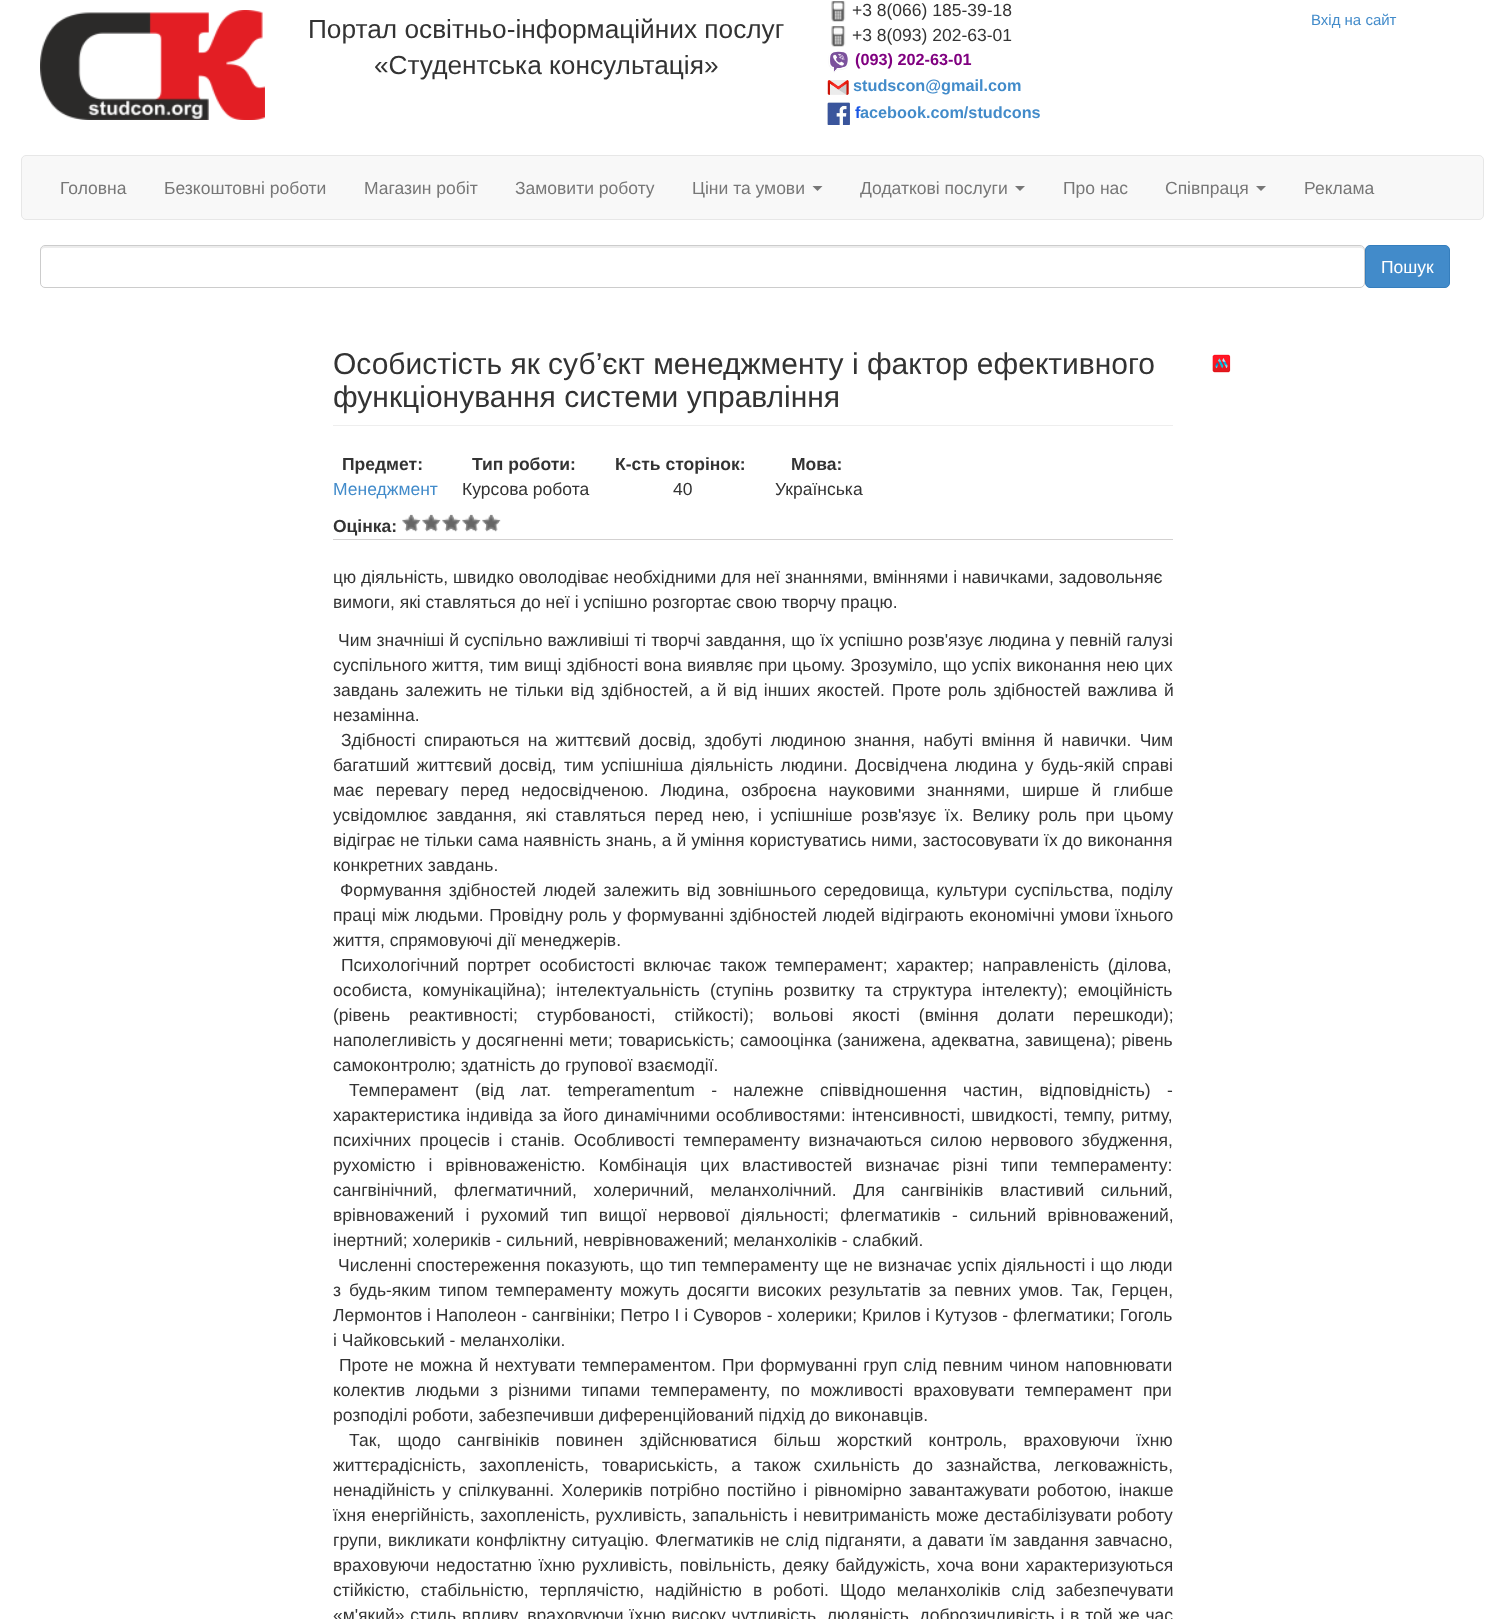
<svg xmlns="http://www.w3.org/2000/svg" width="1504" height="1619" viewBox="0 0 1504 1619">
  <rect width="100%" height="100%" fill="rgb(255,255,255)"/>
  <image x="40" y="10" width="225" height="110" href="pic1.png"/>
  <g font-family="Liberation Sans" font-size="26.25" fill="rgb(51,51,51)">
    <text x="308" y="38">Портал освітньо-інформаційних послуг</text>
    <text x="374" y="74">«Студентська консультація»</text>
  </g>
  <image x="831" y="1" width="15" height="21" href="pic2.png"/>
  <text x="852" y="16" font-family="Liberation Sans" font-size="17.5" fill="rgb(51,51,51)">+3 8(066) 185-39-18</text>
  <image x="831" y="26" width="15" height="21" href="pic2.png"/>
  <text x="852" y="41" font-family="Liberation Sans" font-size="17.5" fill="rgb(51,51,51)">+3 8(093) 202-63-01</text>
  <image x="828" y="51" width="21" height="22" href="pic3.png"/>
  <text x="855" y="65" font-family="Liberation Sans" font-size="16.25" font-weight="bold" fill="rgb(128,0,128)">(093) 202-63-01</text>
  <image x="827" y="80" width="22" height="15" href="pic4.png"/>
  <text x="853" y="91" font-family="Liberation Sans" font-size="16.25" font-weight="bold" fill="rgb(66,139,202)">studscon@gmail.com</text>
  <image x="827" y="102" width="23" height="23" href="pic5.png"/>
  <text x="855" y="118" font-family="Liberation Sans" font-size="16.25" font-weight="bold" fill="rgb(25,86,229)">f</text>
  <text x="860" y="118" font-family="Liberation Sans" font-size="16.25" font-weight="bold" fill="rgb(66,139,202)">acebook.com/studcons</text>
  <text x="1311" y="25" font-family="Liberation Sans" font-size="15" fill="rgb(66,139,202)">Вхід на сайт</text>
  <rect x="21.5" y="155.5" width="1462" height="64" rx="4.5" fill="rgb(248,248,248)" stroke="rgb(231,231,231)"/>
  <g font-family="Liberation Sans" font-size="17.5" fill="rgb(119,119,119)">
    <text x="60" y="194">Головна</text>
    <text x="164" y="194">Безкоштовні роботи</text>
    <text x="364" y="194">Магазин робіт</text>
    <text x="515" y="194">Замовити роботу</text>
    <text x="692" y="194">Ціни та умови</text>
  </g>
  <path d="M812.5 186H822.5L817.5 191Z" fill="rgb(119,119,119)"/>
  <text x="860" y="194" font-family="Liberation Sans" font-size="17.5" fill="rgb(119,119,119)">Додаткові послуги</text>
  <path d="M1015 186H1025L1020 191Z" fill="rgb(119,119,119)"/>
  <g font-family="Liberation Sans" font-size="17.5" fill="rgb(119,119,119)">
    <text x="1063" y="194">Про нас</text>
    <text x="1165" y="194">Співпраця</text>
  </g>
  <path d="M1256 186H1266L1261 191Z" fill="rgb(119,119,119)"/>
  <text x="1304" y="194" font-family="Liberation Sans" font-size="17.5" fill="rgb(119,119,119)">Реклама</text>
  <path d="M45 248H1360C1362 248 1364 249 1364 251V250C1364 248 1362 246 1360 246H45C43 246 41 248 41 250V251C41 249 43 248 45 248Z" fill="rgb(236,236,236)"/>
  <rect x="40.5" y="245.5" width="1324" height="42" rx="4.5" fill="none" stroke="rgb(204,204,204)"/>
  <rect x="1365.5" y="245.5" width="84" height="42" rx="4.5" fill="rgb(66,139,202)" stroke="rgb(53,126,189)"/>
  <text x="1381" y="273" font-family="Liberation Sans" font-size="17.5" fill="rgb(255,255,255)">Пошук</text>
  <rect x="333" y="425" width="840" height="1" fill="rgb(238,238,238)"/>
  <g font-family="Liberation Sans" font-size="30" fill="rgb(51,51,51)">
    <text>
      <tspan x="333" y="374">Особистість як суб’єкт менеджменту і фактор ефективного</tspan>
      <tspan x="333" y="407">функціонування системи управління</tspan>
    </text>
  </g>
  <text x="342" y="470" font-family="Liberation Sans" font-size="17.5" font-weight="bold" fill="rgb(51,51,51)">Предмет:</text>
  <text x="333" y="495" font-family="Liberation Sans" font-size="17.5" fill="rgb(66,139,202)">Менеджмент</text>
  <text x="472" y="470" font-family="Liberation Sans" font-size="17.5" font-weight="bold" fill="rgb(51,51,51)">Тип роботи:</text>
  <text x="462" y="495" font-family="Liberation Sans" font-size="17.5" fill="rgb(51,51,51)">Курсова робота</text>
  <text x="615" y="470" font-family="Liberation Sans" font-size="17.5" font-weight="bold" fill="rgb(51,51,51)">К-сть сторінок:</text>
  <text x="673" y="495" font-family="Liberation Sans" font-size="17.5" fill="rgb(51,51,51)">40</text>
  <text x="791" y="470" font-family="Liberation Sans" font-size="17.5" font-weight="bold" fill="rgb(51,51,51)">Мова:</text>
  <text x="775" y="495" font-family="Liberation Sans" font-size="17.5" fill="rgb(51,51,51)">Українська</text>
  <rect x="333" y="539" width="840" height="1" fill="rgb(211,209,209)"/>
  <text x="333" y="532" font-family="Liberation Sans" font-size="17.5" font-weight="bold" fill="rgb(51,51,51)">Оцінка:</text>
  <image x="402" y="514" width="19" height="18" href="pic6.png"/>
  <image x="402" y="514" width="19" height="17" href="pic7.png"/>
  <image x="422" y="514" width="19" height="18" href="pic6.png"/>
  <image x="422" y="514" width="19" height="17" href="pic7.png"/>
  <image x="442" y="514" width="19" height="18" href="pic6.png"/>
  <image x="442" y="514" width="19" height="17" href="pic7.png"/>
  <image x="462" y="514" width="19" height="18" href="pic6.png"/>
  <image x="462" y="514" width="19" height="17" href="pic7.png"/>
  <image x="482" y="514" width="19" height="18" href="pic6.png"/>
  <image x="482" y="514" width="19" height="17" href="pic7.png"/>
  <g font-family="Liberation Sans" font-size="17.5" fill="rgb(51,51,51)">
    <text>
      <tspan x="333" y="583">цю діяльність, швидко оволодіває необхідними для неї знаннями, вміннями і навичками, задовольняє</tspan>
      <tspan x="333" y="608">вимоги, які ставляться до неї і успішно розгортає свою творчу працю.</tspan>
    </text>
    <text x="338" y="646" word-spacing="0.25">Чим значніші й суспільно важливіші ті творчі завдання, що їх успішно розв'язує людина у певній галузі</text>
    <text>
      <tspan x="333" y="671" word-spacing="0.3">суспільного життя, тим вищі здібності вона виявляє при цьому. Зрозуміло, що успіх виконання нею цих</tspan>
      <tspan x="333" y="696" word-spacing="2.1">завдань залежить не тільки від здібностей, а й від інших якостей. Проте роль здібностей важлива й</tspan>
      <tspan x="333" y="721">незамінна.</tspan>
    </text>
    <text x="341" y="746" word-spacing="3.4">Здібності спираються на життєвий досвід, здобуті людиною знання, набуті вміння й навички. Чим</text>
    <text>
      <tspan x="333" y="771" word-spacing="2.6">багатший життєвий досвід, тим успішніша діяльність людини. Досвідчена людина у будь-якій справі</tspan>
      <tspan x="333" y="796" word-spacing="7.25">має перевагу перед недосвідченою. Людина, озброєна науковими знаннями, ширше й глибше</tspan>
      <tspan x="333" y="821" word-spacing="3.9">усвідомлює завдання, які ставляться перед нею, і успішніше розв'язує їх. Велику роль при цьому</tspan>
      <tspan x="333" y="846" word-spacing="0.1">відіграє не тільки сама наявність знань, а й уміння користуватись ними, застосовувати їх до виконання</tspan>
      <tspan x="333" y="871">конкретних завдань.</tspan>
    </text>
    <text x="340" y="896" word-spacing="2.5">Формування здібностей людей залежить від зовнішнього середовища, культури суспільства, поділу</text>
    <text>
      <tspan x="333" y="921" word-spacing="0.75">праці між людьми. Провідну роль у формуванні здібностей людей відіграють економічні умови їхнього</tspan>
      <tspan x="333" y="946">життя, спрямовуючі дії менеджерів.</tspan>
    </text>
    <text x="341" y="971" word-spacing="3.75">Психологічний портрет особистості включає також темперамент; характер; направленість (ділова,</text>
    <text>
      <tspan x="333" y="996" word-spacing="5.25">особиста, комунікаційна); інтелектуальність (ступінь розвитку та структура інтелекту); емоційність</tspan>
      <tspan x="333" y="1021" word-spacing="14">(рівень реактивності; стурбованості, стійкості); вольові якості (вміння долати перешкоди);</tspan>
      <tspan x="333" y="1046" word-spacing="0.75">наполегливість у досягненні мети; товариськість; самооцінка (занижена, адекватна, завищена); рівень</tspan>
      <tspan x="333" y="1071">самоконтролю; здатність до групової взаємодії.</tspan>
    </text>
    <text x="349" y="1096" word-spacing="11.5">Темперамент (від лат. temperamentum - належне співвідношення частин, відповідність) -</text>
    <text>
      <tspan x="333" y="1121" word-spacing="1.3">характеристика індивіда за його динамічними особливостями: інтенсивності, швидкості, темпу, ритму,</tspan>
      <tspan x="333" y="1146" word-spacing="3.75">психічних процесів і станів. Особливості темпераменту визначаються силою нервового збудження,</tspan>
      <tspan x="333" y="1171" word-spacing="8.25">рухомістю і врівноваженістю. Комбінація цих властивостей визначає різні типи темпераменту:</tspan>
      <tspan x="333" y="1196" word-spacing="11.75">сангвінічний, флегматичний, холеричний, меланхолічний. Для сангвініків властивий сильний,</tspan>
      <tspan x="333" y="1221" word-spacing="6.5">врівноважений і рухомий тип вищої нервової діяльності; флегматиків - сильний врівноважений,</tspan>
      <tspan x="333" y="1246">інертний; холериків - сильний, неврівноважений; меланхоліків - слабкий.</tspan>
    </text>
    <text x="338" y="1271" word-spacing="0.6">Численні спостереження показують, що тип темпераменту ще не визначає успіх діяльності і що люди</text>
    <text>
      <tspan x="333" y="1296" word-spacing="3">з будь-яким типом темпераменту можуть досягти високих результатів за певних умов. Так, Герцен,</tspan>
      <tspan x="333" y="1321">Лермонтов і Наполеон - сангвініки; Петро І і Суворов - холерики; Крилов і Кутузов - флегматики; Гоголь</tspan>
      <tspan x="333" y="1346">і Чайковський - меланхоліки.</tspan>
    </text>
    <text x="339" y="1371" word-spacing="1.3">Проте не можна й нехтувати темпераментом. При формуванні груп слід певним чином наповнювати</text>
    <text>
      <tspan x="333" y="1396" word-spacing="5.5">колектив людьми з різними типами темпераменту, по можливості враховувати темперамент при</tspan>
      <tspan x="333" y="1421">розподілі роботи, забезпечивши диференційований підхід до виконавців.</tspan>
    </text>
    <text x="349" y="1446" word-spacing="11.5">Так, щодо сангвініків повинен здійснюватися більш жорсткий контроль, враховуючи їхню</text>
    <text>
      <tspan x="333" y="1471" word-spacing="8.25">життєрадісність, захопленість, товариськість, а також схильність до зазнайства, легковажність,</tspan>
      <tspan x="333" y="1496" word-spacing="2.4">ненадійність у спілкуванні. Холериків потрібно постійно і рівномірно завантажувати роботою, інакше</tspan>
      <tspan x="333" y="1521" word-spacing="0.75">їхня енергійність, захопленість, рухливість, запальність і невитриманість може дестабілізувати роботу</tspan>
      <tspan x="333" y="1546" word-spacing="1.25">групи, викликати конфліктну ситуацію. Флегматиків не слід підганяти, а давати їм завдання завчасно,</tspan>
      <tspan x="333" y="1571" word-spacing="2">враховуючи недостатню їхню рухливість, повільність, деяку байдужість, хоча вони характеризуються</tspan>
      <tspan x="333" y="1596" word-spacing="6.25">стійкістю, стабільністю, терплячістю, надійністю в роботі. Щодо меланхоліків слід забезпечувати</tspan>
      <tspan x="333" y="1621" word-spacing="0.9">«м'який» стиль впливу, враховуючи їхню високу чутливість, людяність, доброзичливість і в той же час</tspan>
    </text>
  </g>
  <image x="1212" y="354" width="19" height="19" href="pic8.png"/>
</svg>
